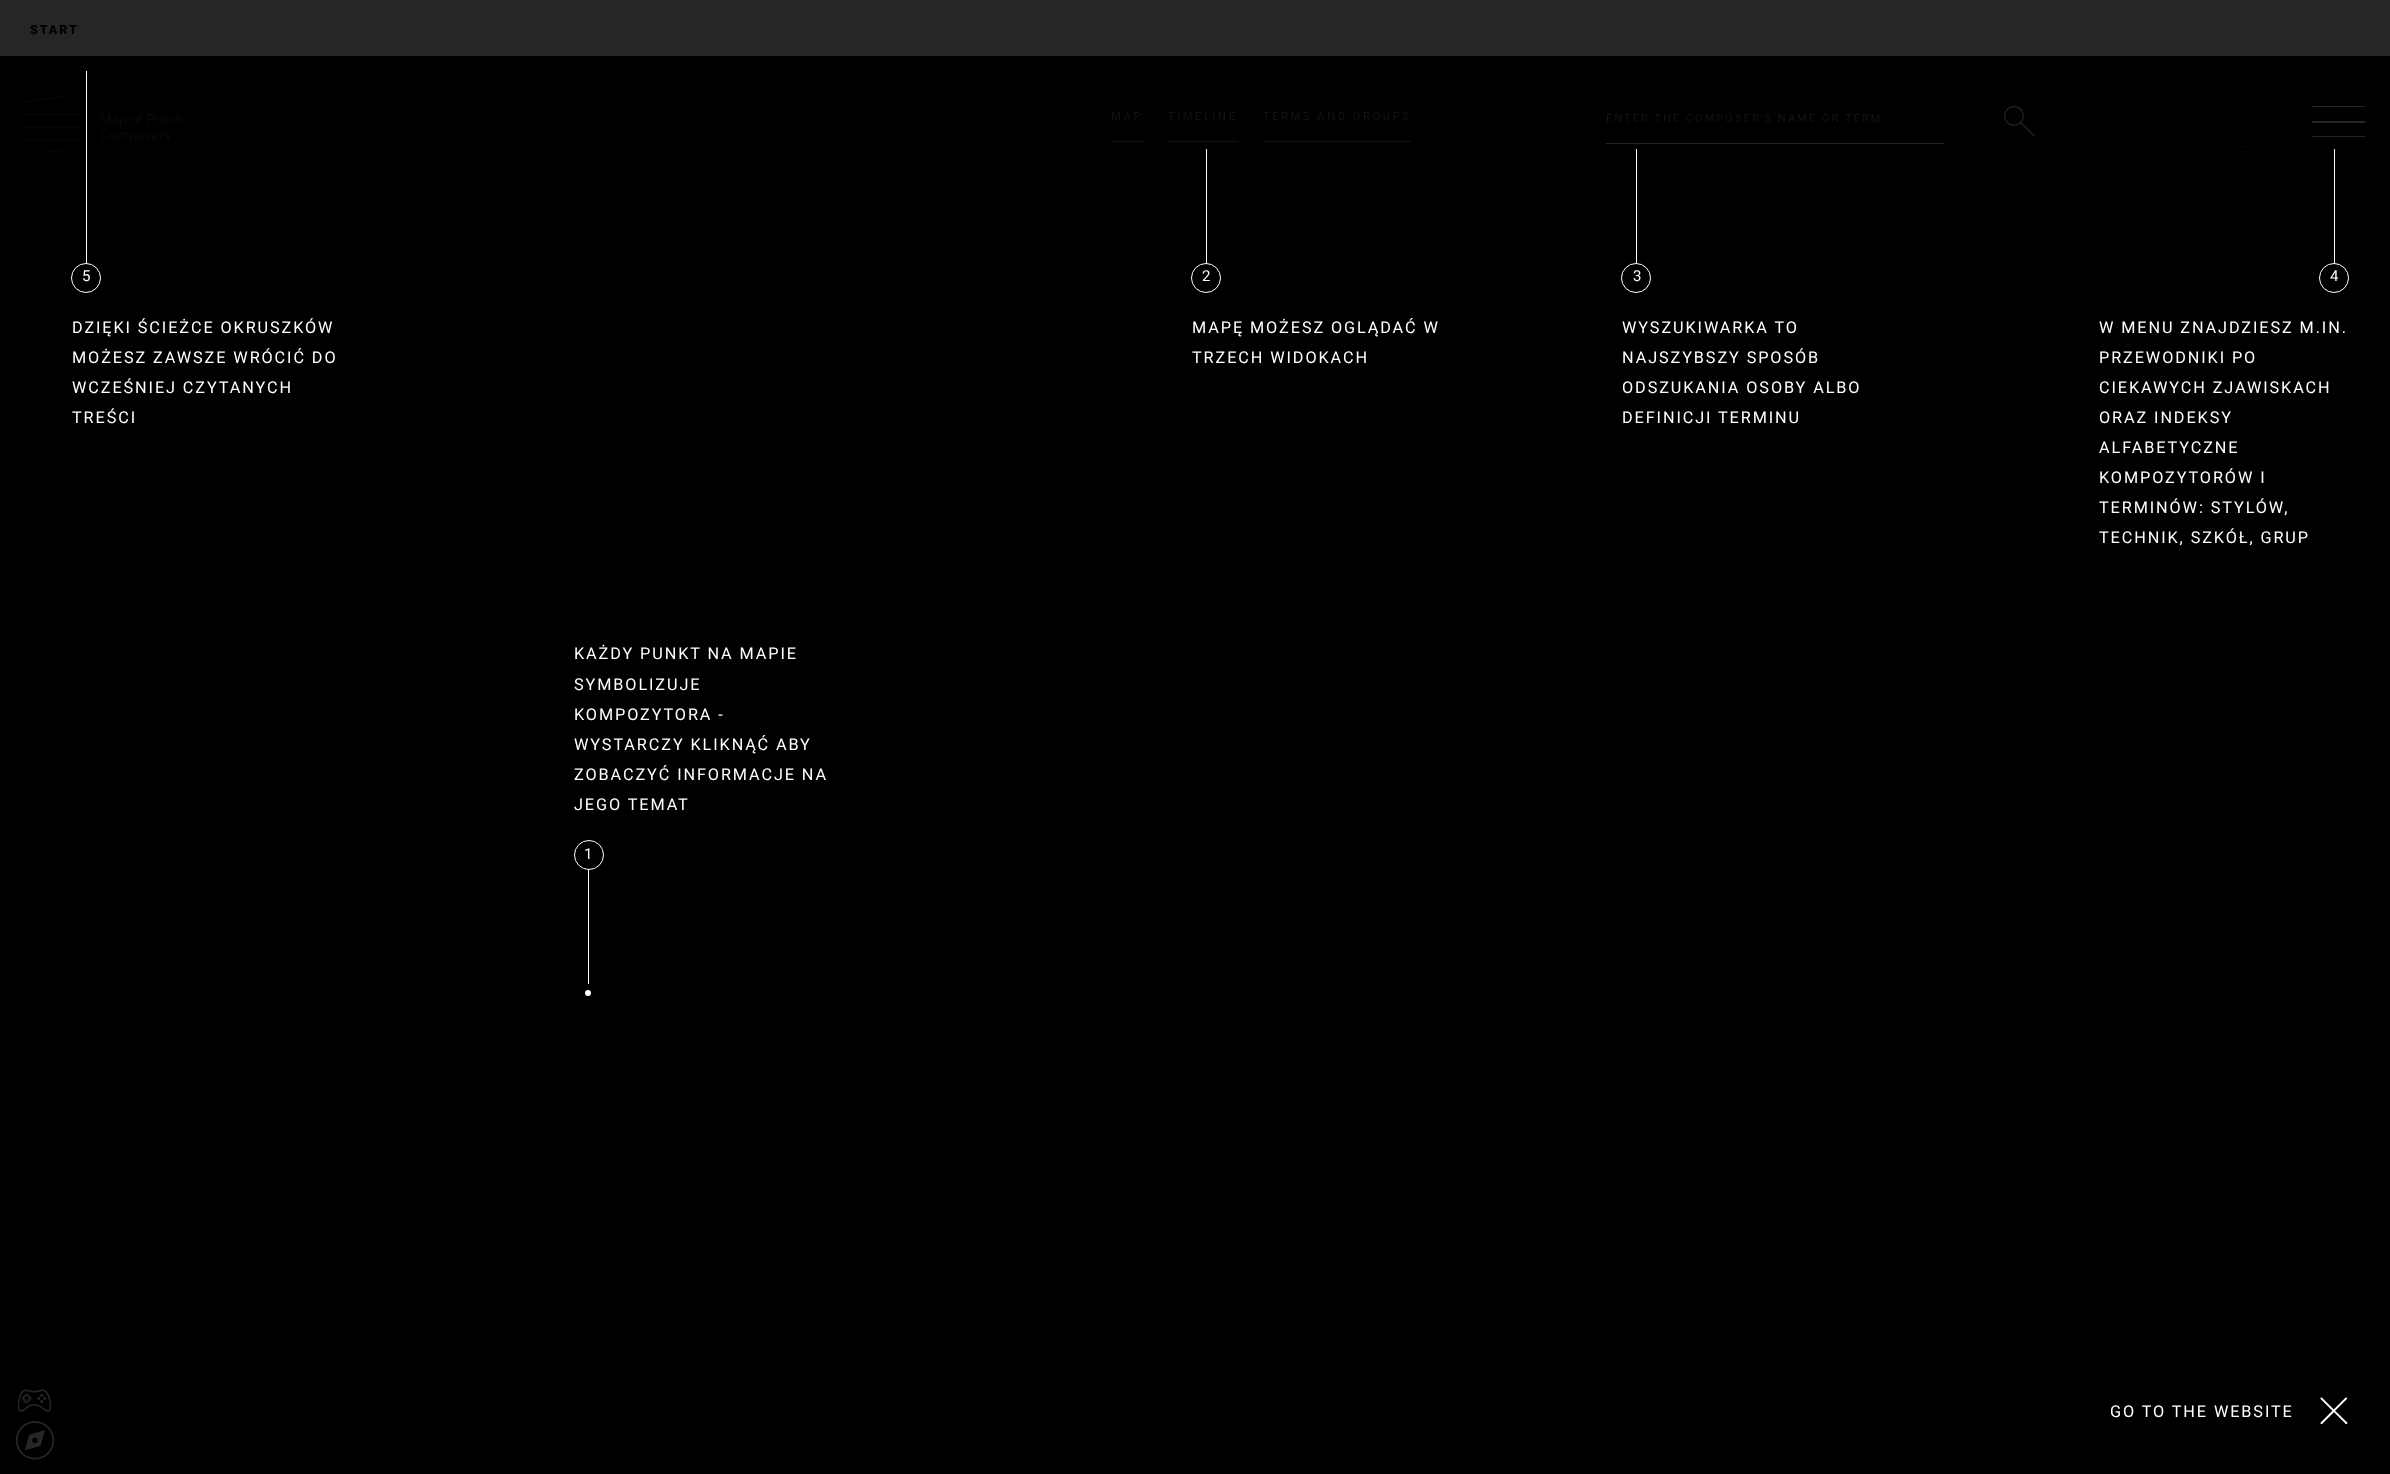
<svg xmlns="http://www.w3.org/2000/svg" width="2390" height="1474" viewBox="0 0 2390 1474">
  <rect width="100%" height="100%" fill="rgb(0,0,0)"/>
  <rect x="0" y="0" width="2390" height="56" fill="rgb(38,38,38)"/>
  <text x="30" y="34" font-family="Roboto" font-size="12.5" font-weight="900" letter-spacing="1.9" fill="rgb(0,0,0)">START</text>
  <image x="25" y="96" width="158" height="56" href="pic1.png"/>
  <text x="1111" y="120" font-family="Roboto" font-size="11.25" letter-spacing="2.5" fill="rgb(19,19,19)">MAP</text>
  <rect x="1111" y="141" width="33" height="1" fill="rgb(19,19,19)"/>
  <text x="1168" y="120" font-family="Roboto" font-size="11.25" letter-spacing="2.5" fill="rgb(19,19,19)">TIMELINE</text>
  <rect x="1169" y="141" width="69" height="1" fill="rgb(19,19,19)"/>
  <text x="1263" y="120" font-family="Roboto" font-size="11.25" letter-spacing="2.5" fill="rgb(19,19,19)">TERMS AND GROUPS</text>
  <rect x="1263" y="141" width="148" height="1" fill="rgb(19,19,19)"/>
  <rect x="1606" y="143" width="338" height="1" fill="rgb(38,38,38)"/>
  <text x="1606" y="122" font-family="Roboto" font-size="11.25" letter-spacing="1.9" fill="rgb(19,19,19)">ENTER THE COMPOSER'S NAME OR TERM</text>
  <image x="2004" y="106" width="31" height="31" href="pic2.png"/>
  <path d="M2365 106H2312V107H2365ZM2365 121H2312V123H2365ZM2365 136H2312V137H2365Z" fill="rgb(38,38,38)"/>
  <rect x="2234" y="146" width="19" height="1" fill="rgb(6,6,6)"/>
  <image x="18" y="1389" width="33" height="23" href="pic3.png"/>
  <image x="15" y="1421" width="40" height="39" href="pic4.png"/>
  <rect x="86" y="71" width="1" height="193" fill="rgb(255,255,255)"/>
  <circle cx="86" cy="278" r="14.5" fill="rgb(0,0,0)" stroke="rgb(255,255,255)"/>
  <text x="82" y="281" font-family="Roboto" font-size="15" fill="rgb(255,255,255)">5</text>
  <g font-family="Roboto" font-size="16.25" letter-spacing="1.9" fill="rgb(255,255,255)">
    <text>
      <tspan x="72" y="333">DZIĘKI ŚCIEŻCE OKRUSZKÓW</tspan>
      <tspan x="72" y="363">MOŻESZ ZAWSZE WRÓCIĆ DO</tspan>
      <tspan x="72" y="393">WCZEŚNIEJ CZYTANYCH</tspan>
      <tspan x="72" y="423">TREŚCI</tspan>
    </text>
  </g>
  <rect x="1206" y="149" width="1" height="115" fill="rgb(255,255,255)"/>
  <circle cx="1206" cy="278" r="14.5" fill="rgb(0,0,0)" stroke="rgb(255,255,255)"/>
  <text x="1202" y="281" font-family="Roboto" font-size="15" fill="rgb(255,255,255)">2</text>
  <g font-family="Roboto" font-size="16.25" letter-spacing="1.9" fill="rgb(255,255,255)">
    <text>
      <tspan x="1192" y="333">MAPĘ MOŻESZ OGLĄDAĆ W</tspan>
      <tspan x="1192" y="363">TRZECH WIDOKACH</tspan>
    </text>
  </g>
  <rect x="1636" y="149" width="1" height="115" fill="rgb(255,255,255)"/>
  <circle cx="1636" cy="278" r="14.5" fill="rgb(0,0,0)" stroke="rgb(255,255,255)"/>
  <text x="1633" y="281" font-family="Roboto" font-size="15" fill="rgb(255,255,255)">3</text>
  <g font-family="Roboto" font-size="16.25" letter-spacing="1.9" fill="rgb(255,255,255)">
    <text>
      <tspan x="1622" y="333">WYSZUKIWARKA TO</tspan>
      <tspan x="1622" y="363">NAJSZYBSZY SPOSÓB</tspan>
      <tspan x="1622" y="393">ODSZUKANIA OSOBY ALBO</tspan>
      <tspan x="1622" y="423">DEFINICJI TERMINU</tspan>
    </text>
  </g>
  <rect x="2334" y="149" width="1" height="115" fill="rgb(255,255,255)"/>
  <circle cx="2334" cy="278" r="14.5" fill="rgb(0,0,0)" stroke="rgb(255,255,255)"/>
  <text x="2330" y="281" font-family="Roboto" font-size="15" fill="rgb(255,255,255)">4</text>
  <g font-family="Roboto" font-size="16.25" letter-spacing="1.9" fill="rgb(255,255,255)">
    <text>
      <tspan x="2099" y="333">W MENU ZNAJDZIESZ M.IN.</tspan>
      <tspan x="2099" y="363">PRZEWODNIKI PO</tspan>
      <tspan x="2099" y="393">CIEKAWYCH ZJAWISKACH</tspan>
      <tspan x="2099" y="423">ORAZ INDEKSY</tspan>
      <tspan x="2099" y="453">ALFABETYCZNE</tspan>
      <tspan x="2099" y="483">KOMPOZYTORÓW I</tspan>
      <tspan x="2099" y="513">TERMINÓW: STYLÓW,</tspan>
      <tspan x="2099" y="543">TECHNIK, SZKÓŁ, GRUP</tspan>
    </text>
    <text>
      <tspan x="574" y="659">KAŻDY PUNKT NA MAPIE</tspan>
      <tspan x="574" y="690">SYMBOLIZUJE</tspan>
      <tspan x="574" y="720">KOMPOZYTORA -</tspan>
      <tspan x="574" y="750">WYSTARCZY KLIKNĄĆ ABY</tspan>
      <tspan x="574" y="780">ZOBACZYĆ INFORMACJE NA</tspan>
      <tspan x="574" y="810">JEGO TEMAT</tspan>
    </text>
  </g>
  <rect x="588" y="869" width="1" height="115" fill="rgb(255,255,255)"/>
  <circle cx="589" cy="855" r="14.5" fill="rgb(0,0,0)" stroke="rgb(255,255,255)"/>
  <text x="584" y="859" font-family="Roboto" font-size="15" fill="rgb(255,255,255)">1</text>
  <circle cx="588" cy="993" r="3" fill="rgb(255,255,255)"/>
  <text x="2110" y="1417" font-family="Roboto" font-size="16.25" letter-spacing="1.9" fill="rgb(255,255,255)">GO TO THE WEBSITE</text>
  <image x="2320" y="1397" width="28" height="27" href="pic5.png"/>
</svg>
